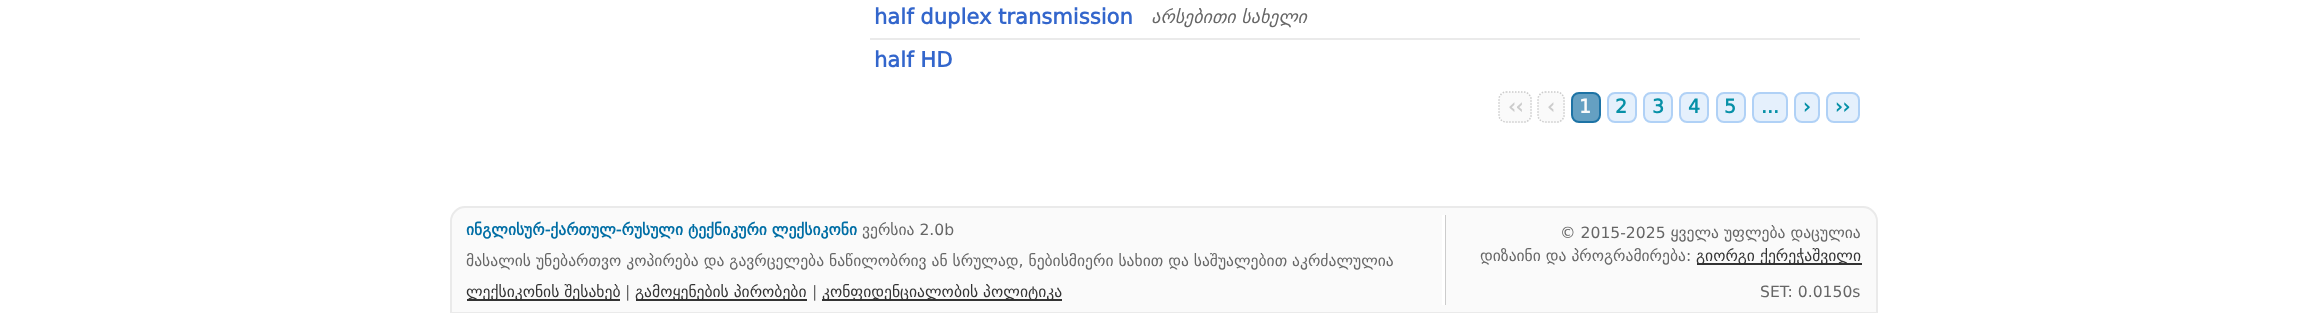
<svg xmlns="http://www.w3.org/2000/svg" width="2323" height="313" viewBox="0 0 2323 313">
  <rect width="100%" height="100%" fill="rgb(255,255,255)"/>
  <rect x="870" y="38" width="990" height="2" fill="rgb(234,234,234)"/>
  <text x="874" y="24" font-family="DejaVu Sans" font-size="21.1" font-weight="bold" fill="rgb(51,102,204)">half duplex transmission</text>
  <text x="1151" y="23" font-family="DejaVu Sans" font-size="18" font-style="italic" fill="rgb(102,102,102)">არსებითი სახელი</text>
  <text x="874" y="67" font-family="DejaVu Sans" font-size="21.1" font-weight="bold" fill="rgb(51,102,204)">half HD</text>
  <rect x="1499" y="92" width="33" height="31" rx="8" fill="rgb(250,250,250)"/>
  <path d="M1506 92H1524C1527.5 92 1531 95.5 1531 99V115.5C1531 119 1527.5 122 1524 122H1506C1502.5 122 1499 119 1499 115.5V99C1499 95.5 1502.5 92 1506 92Z" fill="none" stroke="rgb(204,204,204)" stroke-width="1.5" stroke-dasharray="1.5 1.5"/>
  <text x="1508" y="113" font-family="DejaVu Sans" font-size="19" font-weight="bold" fill="rgb(204,204,204)">‹‹</text>
  <rect x="1538" y="92" width="27" height="31" rx="8" fill="rgb(250,250,250)"/>
  <path d="M1545 92H1557C1560.5 92 1564 95.5 1564 99V115.5C1564 119 1560.5 122 1557 122H1545C1541.5 122 1538 119 1538 115.5V99C1538 95.5 1541.5 92 1545 92Z" fill="none" stroke="rgb(204,204,204)" stroke-width="1.5" stroke-dasharray="1.5 1.5"/>
  <text x="1547" y="113" font-family="DejaVu Sans" font-size="19" font-weight="bold" fill="rgb(204,204,204)">‹</text>
  <rect x="1572" y="93" width="28" height="29" rx="7" fill="rgb(101,160,194)" stroke="rgb(29,115,165)" stroke-width="2"/>
  <text x="1579" y="113" font-family="DejaVu Sans" font-size="19" font-weight="bold" fill="rgb(250,250,250)">1</text>
  <rect x="1608" y="93" width="28" height="29" rx="7" fill="rgb(229,240,252)" stroke="rgb(176,209,246)" stroke-width="2"/>
  <text x="1615" y="113" font-family="DejaVu Sans" font-size="19" font-weight="bold" fill="rgb(6,144,167)">2</text>
  <rect x="1644" y="93" width="28" height="29" rx="7" fill="rgb(229,240,252)" stroke="rgb(176,209,246)" stroke-width="2"/>
  <text x="1652" y="113" font-family="DejaVu Sans" font-size="19" font-weight="bold" fill="rgb(6,144,167)">3</text>
  <rect x="1680" y="93" width="28" height="29" rx="7" fill="rgb(229,240,252)" stroke="rgb(176,209,246)" stroke-width="2"/>
  <text x="1688" y="113" font-family="DejaVu Sans" font-size="19" font-weight="bold" fill="rgb(6,144,167)">4</text>
  <rect x="1717" y="93" width="28" height="29" rx="7" fill="rgb(229,240,252)" stroke="rgb(176,209,246)" stroke-width="2"/>
  <text x="1724" y="113" font-family="DejaVu Sans" font-size="19" font-weight="bold" fill="rgb(6,144,167)">5</text>
  <rect x="1753" y="93" width="34" height="29" rx="7" fill="rgb(229,240,252)" stroke="rgb(176,209,246)" stroke-width="2"/>
  <text x="1761" y="113" font-family="DejaVu Sans" font-size="19" font-weight="bold" fill="rgb(6,144,167)">...</text>
  <rect x="1795" y="93" width="24" height="29" rx="7" fill="rgb(229,240,252)" stroke="rgb(176,209,246)" stroke-width="2"/>
  <text x="1803" y="113" font-family="DejaVu Sans" font-size="19" font-weight="bold" fill="rgb(6,144,167)">›</text>
  <rect x="1827" y="93" width="32" height="29" rx="7" fill="rgb(229,240,252)" stroke="rgb(176,209,246)" stroke-width="2"/>
  <text x="1835" y="113" font-family="DejaVu Sans" font-size="19" font-weight="bold" fill="rgb(6,144,167)">››</text>
  <path d="M465 207H1863C1870.5 207 1877 213.5 1877 221V313H451V221C451 213.5 457.5 207 465 207Z" fill="rgb(250,250,250)" stroke="rgb(234,234,234)" stroke-width="2"/>
  <rect x="1442" y="215" width="3" height="90" fill="rgb(255,255,255)"/>
  <text x="466" y="235" font-family="DejaVu Sans" font-size="15.6" font-weight="bold" fill="rgb(0,110,165)">ინგლისურ-ქართულ-რუსული ტექნიკური ლექსიკონი</text>
  <g font-family="DejaVu Sans" font-size="15.6" fill="rgb(102,102,102)">
    <text x="862" y="235">ვერსია 2.0b</text>
    <text x="466" y="266">მასალის უნებართვო კოპირება და გავრცელება ნაწილობრივ ან სრულად, ნებისმიერი სახით და საშუალებით აკრძალულია</text>
  </g>
  <rect x="467" y="299" width="153" height="2" fill="rgb(51,51,51)"/>
  <text x="466" y="297" font-family="DejaVu Sans" font-size="15.6" fill="rgb(51,51,51)">ლექსიკონის შესახებ</text>
  <text x="625" y="297" font-family="DejaVu Sans" font-size="15.6" fill="rgb(102,102,102)">|</text>
  <rect x="636" y="299" width="171" height="2" fill="rgb(51,51,51)"/>
  <text x="635" y="297" font-family="DejaVu Sans" font-size="15.6" fill="rgb(51,51,51)">გამოყენების პირობები</text>
  <text x="812" y="297" font-family="DejaVu Sans" font-size="15.6" fill="rgb(102,102,102)">|</text>
  <rect x="822" y="299" width="240" height="2" fill="rgb(51,51,51)"/>
  <text x="822" y="297" font-family="DejaVu Sans" font-size="15.6" fill="rgb(51,51,51)">კონფიდენციალობის პოლიტიკა</text>
  <rect x="1445" y="215" width="1" height="90" fill="rgb(204,204,204)"/>
  <g font-family="DejaVu Sans" font-size="15.6" fill="rgb(102,102,102)">
    <text x="1560" y="238">© 2015-2025 ყველა უფლება დაცულია</text>
    <text x="1480" y="261">დიზაინი და პროგრამირება:</text>
  </g>
  <rect x="1697" y="263" width="165" height="2" fill="rgb(51,51,51)"/>
  <text x="1696" y="261" font-family="DejaVu Sans" font-size="15.6" fill="rgb(51,51,51)">გიორგი ქერეჭაშვილი</text>
  <text x="1760" y="297" font-family="DejaVu Sans" font-size="15.6" fill="rgb(102,102,102)">SET: 0.0150s</text>
</svg>
